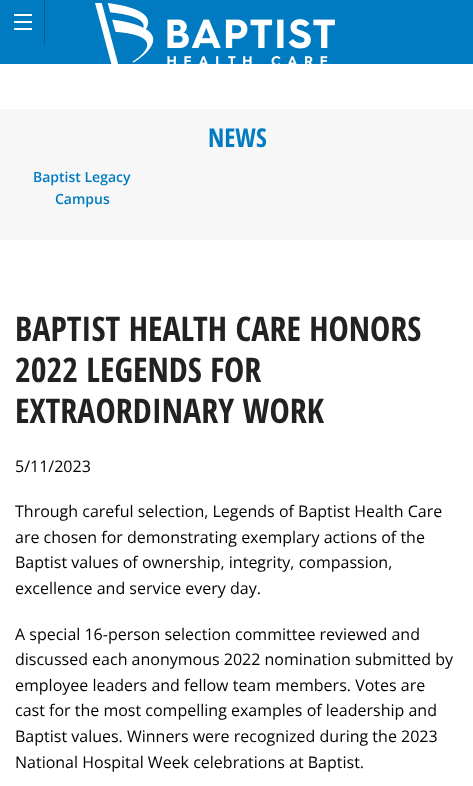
<svg xmlns="http://www.w3.org/2000/svg" width="473" height="786" viewBox="0 0 473 786">
  <rect width="100%" height="100%" fill="rgb(255,255,255)"/>
  <rect x="0" y="0" width="473" height="64" fill="rgb(0,123,194)"/>
  <rect x="44" y="0" width="1" height="45" fill="rgb(0,98,146)"/>
  <rect x="14" y="28" width="18" height="2" fill="rgb(255,255,255)"/>
  <rect x="14" y="21" width="18" height="2" fill="rgb(255,255,255)"/>
  <rect x="14" y="14" width="18" height="2" fill="rgb(255,255,255)"/>
  <image x="95" y="3" width="240" height="61" href="pic1.png"/>
  <rect x="0" y="109" width="473" height="131" fill="rgb(247,247,247)"/>
  <text x="208" y="147" font-family="Open Sans Condensed" font-size="26" font-weight="bold" fill="rgb(0,123,194)">NEWS</text>
  <g font-family="Open Sans" font-size="14" font-weight="600" fill="rgb(0,123,194)">
    <text x="33" y="182">Baptist Legacy</text>
    <text x="55" y="204">Campus</text>
  </g>
  <g font-family="Open Sans Condensed" font-size="34" font-weight="bold" fill="rgb(34,34,34)">
    <text>
      <tspan x="15" y="341">BAPTIST HEALTH CARE HONORS</tspan>
      <tspan x="15" y="382">2022 LEGENDS FOR</tspan>
      <tspan x="15" y="423">EXTRAORDINARY WORK</tspan>
    </text>
  </g>
  <g font-family="Open Sans" font-size="16" fill="rgb(0,0,0)">
    <text x="15" y="472">5/11/2023</text>
    <text>
      <tspan x="15" y="517">Through careful selection, Legends of Baptist Health Care</tspan>
      <tspan x="15" y="543">are chosen for demonstrating exemplary actions of the</tspan>
      <tspan x="15" y="568">Baptist values of ownership, integrity, compassion,</tspan>
      <tspan x="15" y="594">excellence and service every day.</tspan>
    </text>
    <text>
      <tspan x="15" y="640">A special 16-person selection committee reviewed and</tspan>
      <tspan x="15" y="665">discussed each anonymous 2022 nomination submitted by</tspan>
      <tspan x="15" y="691">employee leaders and fellow team members. Votes are</tspan>
      <tspan x="15" y="716">cast for the most compelling examples of leadership and</tspan>
      <tspan x="15" y="742">Baptist values. Winners were recognized during the 2023</tspan>
      <tspan x="15" y="768">National Hospital Week celebrations at Baptist.</tspan>
    </text>
  </g>
</svg>
